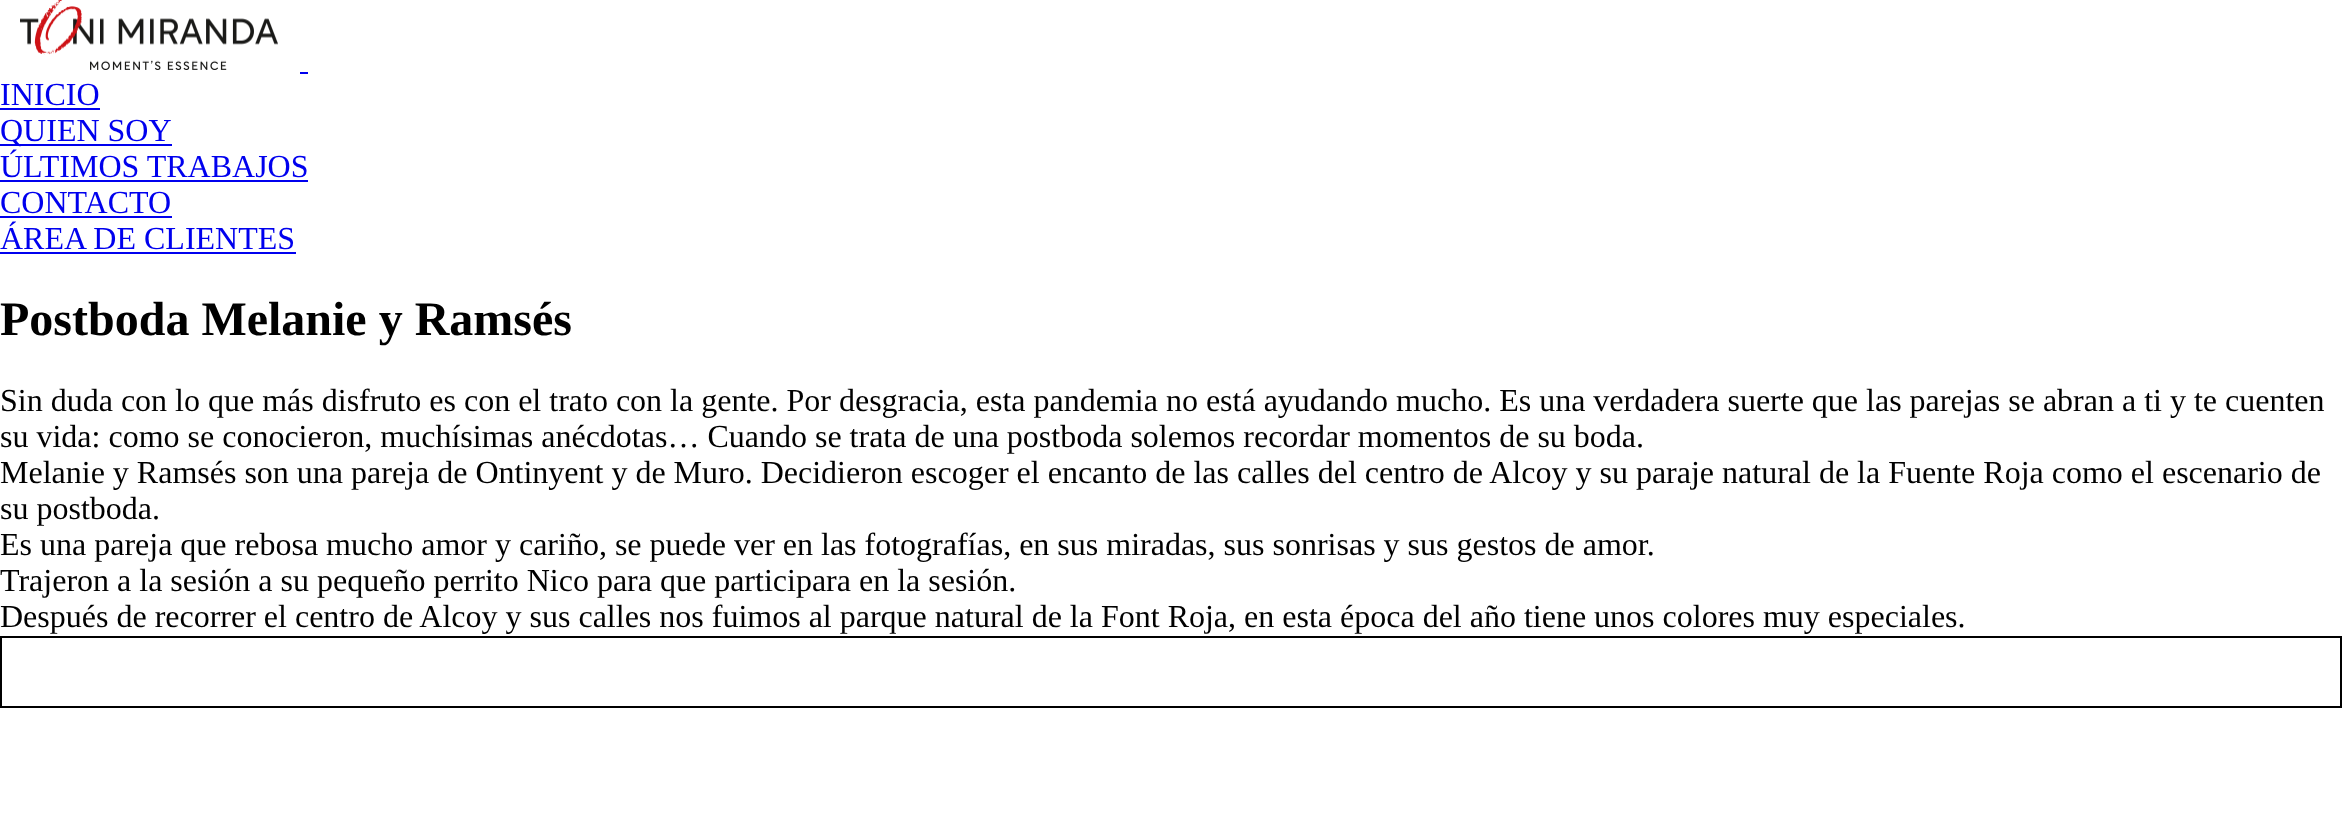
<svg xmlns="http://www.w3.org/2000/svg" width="2342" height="817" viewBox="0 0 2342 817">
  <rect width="100%" height="100%" fill="rgb(255,255,255)"/>
  <image x="20" y="0" width="258" height="70" href="pic1.png"/>
  <rect x="300" y="72" width="8" height="2" fill="rgb(0,0,238)"/>
  <text x="0" y="105" font-family="Liberation Serif" font-size="32" fill="rgb(0,0,238)">INICIO</text>
  <rect x="0" y="108" width="100" height="2" fill="rgb(0,0,238)"/>
  <rect x="0" y="144" width="172" height="2" fill="rgb(0,0,238)"/>
  <g font-family="Liberation Serif" font-size="32" fill="rgb(0,0,238)">
    <text>
      <tspan x="0" y="141">QUIEN SOY</tspan>
      <tspan x="0" y="177">ÚLTIMOS TRABAJOS</tspan>
    </text>
  </g>
  <rect x="0" y="180" width="308" height="2" fill="rgb(0,0,238)"/>
  <text x="0" y="213" font-family="Liberation Serif" font-size="32" fill="rgb(0,0,238)">CONTACTO</text>
  <rect x="0" y="216" width="172" height="2" fill="rgb(0,0,238)"/>
  <text x="0" y="249" font-family="Liberation Serif" font-size="32" fill="rgb(0,0,238)">ÁREA DE CLIENTES</text>
  <rect x="0" y="252" width="296" height="2" fill="rgb(0,0,238)"/>
  <text x="0" y="335" font-family="Liberation Serif" font-size="48" font-weight="bold" fill="rgb(0,0,0)">Postboda Melanie y Ramsés</text>
  <g font-family="Liberation Serif" font-size="32" fill="rgb(0,0,0)">
    <text>
      <tspan x="0" y="411">Sin duda con lo que más disfruto es con el trato con la gente. Por desgracia, esta pandemia no está ayudando mucho. Es una verdadera suerte que las parejas se abran a ti y te cuenten</tspan>
      <tspan x="0" y="447">su vida: como se conocieron, muchísimas anécdotas… Cuando se trata de una postboda solemos recordar momentos de su boda.</tspan>
      <tspan x="0" y="483">Melanie y Ramsés son una pareja de Ontinyent y de Muro. Decidieron escoger el encanto de las calles del centro de Alcoy y su paraje natural de la Fuente Roja como el escenario de</tspan>
      <tspan x="0" y="519">su postboda.</tspan>
      <tspan x="0" y="555">Es una pareja que rebosa mucho amor y cariño, se puede ver en las fotografías, en sus miradas, sus sonrisas y sus gestos de amor.</tspan>
      <tspan x="0" y="591">Trajeron a la sesión a su pequeño perrito Nico para que participara en la sesión.</tspan>
      <tspan x="0" y="627">Después de recorrer el centro de Alcoy y sus calles nos fuimos al parque natural de la Font Roja, en esta época del año tiene unos colores muy especiales.</tspan>
    </text>
  </g>
  <rect x="0" y="636" width="2342" height="2" fill="rgb(0,0,0)"/>
  <rect x="2340" y="636" width="2" height="72" fill="rgb(0,0,0)"/>
  <rect x="0" y="706" width="2342" height="2" fill="rgb(0,0,0)"/>
  <rect x="0" y="636" width="2" height="72" fill="rgb(0,0,0)"/>
</svg>
